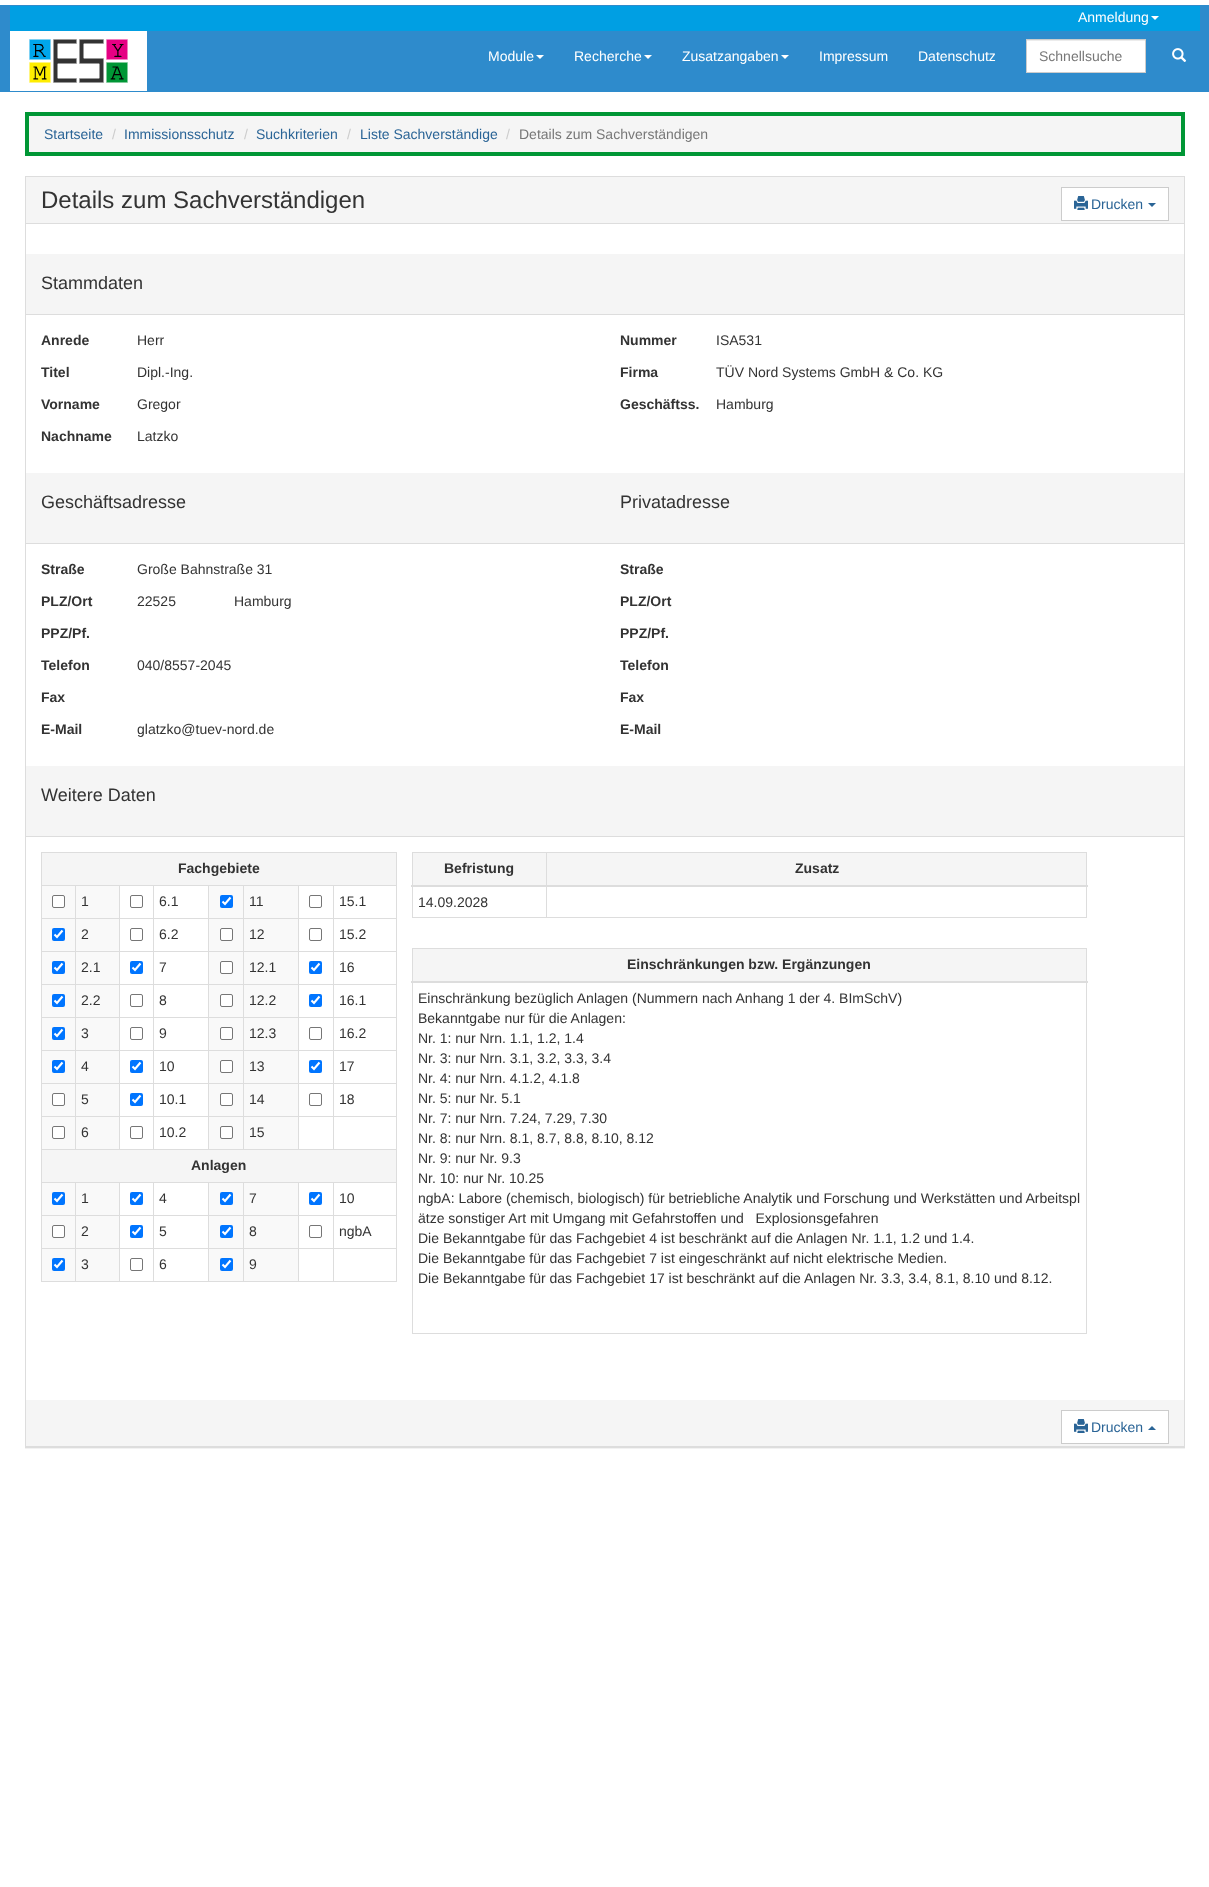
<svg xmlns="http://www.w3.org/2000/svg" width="1209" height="1887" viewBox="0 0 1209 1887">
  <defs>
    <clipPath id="clip1"><rect x="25" y="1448" width="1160" height="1"/></clipPath>
  </defs>
  <rect width="100%" height="100%" fill="rgb(255,255,255)"/>
  <rect x="0" y="5" width="1209" height="87" fill="rgb(46,139,204)"/>
  <rect x="10" y="6" width="1190" height="25" fill="rgb(0,159,227)"/>
  <text x="1078" y="22" font-family="Liberation Sans" font-size="14" fill="rgb(255,255,255)">Anmeldung</text>
  <path d="M1151 16H1159L1155 20Z" fill="rgb(255,255,255)"/>
  <image x="10" y="31" width="137" height="60" href="pic1.png"/>
  <text x="488" y="61" font-family="Liberation Sans" font-size="14" fill="rgb(255,255,255)">Module</text>
  <path d="M536 55H544L540 59Z" fill="rgb(255,255,255)"/>
  <text x="574" y="61" font-family="Liberation Sans" font-size="14" fill="rgb(255,255,255)">Recherche</text>
  <path d="M644 55H652L648 59Z" fill="rgb(255,255,255)"/>
  <text x="682" y="61" font-family="Liberation Sans" font-size="14" fill="rgb(255,255,255)">Zusatzangaben</text>
  <path d="M781 55H789L785 59Z" fill="rgb(255,255,255)"/>
  <g font-family="Liberation Sans" font-size="14" fill="rgb(255,255,255)">
    <text x="819" y="61">Impressum</text>
    <text x="918" y="61">Datenschutz</text>
  </g>
  <rect x="1027" y="41" width="118" height="31" fill="rgb(255,255,255)"/>
  <rect x="1027" y="40" width="118" height="1" fill="rgb(236,236,236)"/>
  <rect x="1026.5" y="39.5" width="119" height="33" fill="none" stroke="rgb(204,204,204)"/>
  <text x="1039" y="61" font-family="Liberation Sans" font-size="14" fill="rgb(119,119,119)">Schnellsuche</text>
  <image x="1172" y="48" width="15" height="14" href="pic2.png"/>
  <rect x="27" y="114" width="1156" height="40" fill="rgb(245,245,245)" stroke="rgb(0,150,53)" stroke-width="4"/>
  <text x="44" y="139" font-family="Liberation Sans" font-size="14" fill="rgb(42,100,150)">Startseite</text>
  <text x="112" y="139" font-family="Liberation Sans" font-size="14" fill="rgb(204,204,204)">/</text>
  <text x="124" y="139" font-family="Liberation Sans" font-size="14" fill="rgb(42,100,150)">Immissionsschutz</text>
  <text x="244" y="139" font-family="Liberation Sans" font-size="14" fill="rgb(204,204,204)">/</text>
  <text x="256" y="139" font-family="Liberation Sans" font-size="14" fill="rgb(42,100,150)">Suchkriterien</text>
  <text x="347" y="139" font-family="Liberation Sans" font-size="14" fill="rgb(204,204,204)">/</text>
  <text x="360" y="139" font-family="Liberation Sans" font-size="14" fill="rgb(42,100,150)">Liste Sachverständige</text>
  <text x="506" y="139" font-family="Liberation Sans" font-size="14" fill="rgb(204,204,204)">/</text>
  <text x="519" y="139" font-family="Liberation Sans" font-size="14" fill="rgb(119,119,119)">Details zum Sachverständigen</text>
  <g clip-path="url(#clip1)">
    <rect x="25" y="177" width="1160" height="1272" fill="rgba(0,0,0,0.05)" filter="blur(0.5px)"/>
  </g>
  <rect x="25.5" y="176.5" width="1159" height="1271" fill="none" stroke="rgb(221,221,221)"/>
  <rect x="26" y="177" width="1158" height="46" fill="rgb(245,245,245)"/>
  <rect x="26" y="223" width="1158" height="1" fill="rgb(221,221,221)"/>
  <text x="41" y="208" font-family="Liberation Sans" font-size="24" fill="rgb(51,51,51)">Details zum Sachverständigen</text>
  <rect x="1061.5" y="187.5" width="107" height="33" fill="rgb(255,255,255)" stroke="rgb(204,204,204)"/>
  <image x="1074" y="196" width="14" height="14" href="pic3.png"/>
  <text x="1091" y="209" font-family="Liberation Sans" font-size="14" fill="rgb(42,100,150)">Drucken</text>
  <path d="M1148 203H1156L1152 207Z" fill="rgb(42,100,150)"/>
  <rect x="26" y="254" width="1158" height="60" fill="rgb(245,245,245)"/>
  <rect x="26" y="314" width="1158" height="1" fill="rgb(221,221,221)"/>
  <text x="41" y="289" font-family="Liberation Sans" font-size="18" fill="rgb(51,51,51)">Stammdaten</text>
  <text x="41" y="345" font-family="Liberation Sans" font-size="14" font-weight="bold" fill="rgb(51,51,51)">Anrede</text>
  <text x="137" y="345" font-family="Liberation Sans" font-size="14" fill="rgb(51,51,51)">Herr</text>
  <text x="620" y="345" font-family="Liberation Sans" font-size="14" font-weight="bold" fill="rgb(51,51,51)">Nummer</text>
  <text x="716" y="345" font-family="Liberation Sans" font-size="14" fill="rgb(51,51,51)">ISA531</text>
  <text x="41" y="377" font-family="Liberation Sans" font-size="14" font-weight="bold" fill="rgb(51,51,51)">Titel</text>
  <text x="137" y="377" font-family="Liberation Sans" font-size="14" fill="rgb(51,51,51)">Dipl.-Ing.</text>
  <text x="620" y="377" font-family="Liberation Sans" font-size="14" font-weight="bold" fill="rgb(51,51,51)">Firma</text>
  <text x="716" y="377" font-family="Liberation Sans" font-size="14" fill="rgb(51,51,51)">TÜV Nord Systems GmbH &amp; Co. KG</text>
  <text x="41" y="409" font-family="Liberation Sans" font-size="14" font-weight="bold" fill="rgb(51,51,51)">Vorname</text>
  <text x="137" y="409" font-family="Liberation Sans" font-size="14" fill="rgb(51,51,51)">Gregor</text>
  <text x="620" y="409" font-family="Liberation Sans" font-size="14" font-weight="bold" fill="rgb(51,51,51)">Geschäftss.</text>
  <text x="716" y="409" font-family="Liberation Sans" font-size="14" fill="rgb(51,51,51)">Hamburg</text>
  <text x="41" y="441" font-family="Liberation Sans" font-size="14" font-weight="bold" fill="rgb(51,51,51)">Nachname</text>
  <text x="137" y="441" font-family="Liberation Sans" font-size="14" fill="rgb(51,51,51)">Latzko</text>
  <rect x="26" y="473" width="1158" height="70" fill="rgb(245,245,245)"/>
  <rect x="26" y="543" width="1158" height="1" fill="rgb(221,221,221)"/>
  <g font-family="Liberation Sans" font-size="18" fill="rgb(51,51,51)">
    <text x="41" y="508">Geschäftsadresse</text>
    <text x="620" y="508">Privatadresse</text>
  </g>
  <text x="41" y="574" font-family="Liberation Sans" font-size="14" font-weight="bold" fill="rgb(51,51,51)">Straße</text>
  <text x="137" y="574" font-family="Liberation Sans" font-size="14" fill="rgb(51,51,51)">Große Bahnstraße 31</text>
  <g font-family="Liberation Sans" font-size="14" font-weight="bold" fill="rgb(51,51,51)">
    <text x="620" y="574">Straße</text>
    <text x="41" y="606">PLZ/Ort</text>
  </g>
  <g font-family="Liberation Sans" font-size="14" fill="rgb(51,51,51)">
    <text x="137" y="606">22525</text>
    <text x="234" y="606">Hamburg</text>
  </g>
  <g font-family="Liberation Sans" font-size="14" font-weight="bold" fill="rgb(51,51,51)">
    <text x="620" y="606">PLZ/Ort</text>
    <text x="41" y="638">PPZ/Pf.</text>
    <text x="620" y="638">PPZ/Pf.</text>
    <text x="41" y="670">Telefon</text>
  </g>
  <text x="137" y="670" font-family="Liberation Sans" font-size="14" fill="rgb(51,51,51)">040/8557-2045</text>
  <g font-family="Liberation Sans" font-size="14" font-weight="bold" fill="rgb(51,51,51)">
    <text x="620" y="670">Telefon</text>
    <text x="41" y="702">Fax</text>
    <text x="620" y="702">Fax</text>
    <text x="41" y="734">E-Mail</text>
  </g>
  <text x="137" y="734" font-family="Liberation Sans" font-size="14" fill="rgb(51,51,51)">glatzko@tuev-nord.de</text>
  <text x="620" y="734" font-family="Liberation Sans" font-size="14" font-weight="bold" fill="rgb(51,51,51)">E-Mail</text>
  <rect x="26" y="766" width="1158" height="70" fill="rgb(245,245,245)"/>
  <rect x="26" y="836" width="1158" height="1" fill="rgb(221,221,221)"/>
  <text x="41" y="801" font-family="Liberation Sans" font-size="18" fill="rgb(51,51,51)">Weitere Daten</text>
  <rect x="41" y="852" width="356" height="1" fill="rgb(221,221,221)"/>
  <rect x="396" y="852" width="1" height="430" fill="rgb(221,221,221)"/>
  <rect x="41" y="1281" width="356" height="1" fill="rgb(221,221,221)"/>
  <rect x="41" y="852" width="1" height="430" fill="rgb(221,221,221)"/>
  <rect x="42" y="853" width="354" height="32" fill="rgb(245,245,245)"/>
  <text x="178" y="873" font-family="Liberation Sans" font-size="14" font-weight="bold" fill="rgb(51,51,51)">Fachgebiete</text>
  <rect x="42" y="886" width="33" height="32" fill="rgb(249,249,249)"/>
  <rect x="333" y="885" width="64" height="1" fill="rgb(221,221,221)"/>
  <rect x="333" y="918" width="64" height="1" fill="rgb(221,221,221)"/>
  <rect x="333" y="951" width="64" height="1" fill="rgb(221,221,221)"/>
  <rect x="333" y="984" width="64" height="1" fill="rgb(221,221,221)"/>
  <rect x="333" y="1017" width="64" height="1" fill="rgb(221,221,221)"/>
  <rect x="333" y="1050" width="64" height="1" fill="rgb(221,221,221)"/>
  <rect x="333" y="1083" width="64" height="1" fill="rgb(221,221,221)"/>
  <rect x="333" y="1116" width="64" height="1" fill="rgb(221,221,221)"/>
  <rect x="41" y="1149" width="356" height="1" fill="rgb(221,221,221)"/>
  <rect x="333" y="1116" width="1" height="34" fill="rgb(221,221,221)"/>
  <rect x="298" y="1116" width="36" height="1" fill="rgb(221,221,221)"/>
  <rect x="333" y="1083" width="1" height="34" fill="rgb(221,221,221)"/>
  <rect x="298" y="1083" width="36" height="1" fill="rgb(221,221,221)"/>
  <rect x="333" y="1050" width="1" height="34" fill="rgb(221,221,221)"/>
  <rect x="298" y="1050" width="36" height="1" fill="rgb(221,221,221)"/>
  <rect x="333" y="1017" width="1" height="34" fill="rgb(221,221,221)"/>
  <rect x="298" y="1017" width="36" height="1" fill="rgb(221,221,221)"/>
  <rect x="333" y="984" width="1" height="34" fill="rgb(221,221,221)"/>
  <rect x="298" y="984" width="36" height="1" fill="rgb(221,221,221)"/>
  <rect x="333" y="951" width="1" height="34" fill="rgb(221,221,221)"/>
  <rect x="298" y="951" width="36" height="1" fill="rgb(221,221,221)"/>
  <rect x="333" y="918" width="1" height="34" fill="rgb(221,221,221)"/>
  <rect x="298" y="918" width="36" height="1" fill="rgb(221,221,221)"/>
  <rect x="333" y="885" width="1" height="34" fill="rgb(221,221,221)"/>
  <rect x="298" y="885" width="36" height="1" fill="rgb(221,221,221)"/>
  <rect x="298" y="1116" width="1" height="34" fill="rgb(221,221,221)"/>
  <rect x="243" y="1116" width="56" height="1" fill="rgb(221,221,221)"/>
  <rect x="298" y="1083" width="1" height="34" fill="rgb(221,221,221)"/>
  <rect x="243" y="1083" width="56" height="1" fill="rgb(221,221,221)"/>
  <rect x="298" y="1050" width="1" height="34" fill="rgb(221,221,221)"/>
  <rect x="243" y="1050" width="56" height="1" fill="rgb(221,221,221)"/>
  <rect x="298" y="1017" width="1" height="34" fill="rgb(221,221,221)"/>
  <rect x="243" y="1017" width="56" height="1" fill="rgb(221,221,221)"/>
  <rect x="298" y="984" width="1" height="34" fill="rgb(221,221,221)"/>
  <rect x="243" y="984" width="56" height="1" fill="rgb(221,221,221)"/>
  <rect x="298" y="951" width="1" height="34" fill="rgb(221,221,221)"/>
  <rect x="243" y="951" width="56" height="1" fill="rgb(221,221,221)"/>
  <rect x="298" y="918" width="1" height="34" fill="rgb(221,221,221)"/>
  <rect x="243" y="918" width="56" height="1" fill="rgb(221,221,221)"/>
  <rect x="298" y="885" width="1" height="34" fill="rgb(221,221,221)"/>
  <rect x="243" y="885" width="56" height="1" fill="rgb(221,221,221)"/>
  <rect x="243" y="1116" width="1" height="34" fill="rgb(221,221,221)"/>
  <rect x="208" y="1116" width="36" height="1" fill="rgb(221,221,221)"/>
  <rect x="243" y="1083" width="1" height="34" fill="rgb(221,221,221)"/>
  <rect x="208" y="1083" width="36" height="1" fill="rgb(221,221,221)"/>
  <rect x="243" y="1050" width="1" height="34" fill="rgb(221,221,221)"/>
  <rect x="208" y="1050" width="36" height="1" fill="rgb(221,221,221)"/>
  <rect x="243" y="1017" width="1" height="34" fill="rgb(221,221,221)"/>
  <rect x="208" y="1017" width="36" height="1" fill="rgb(221,221,221)"/>
  <rect x="243" y="984" width="1" height="34" fill="rgb(221,221,221)"/>
  <rect x="208" y="984" width="36" height="1" fill="rgb(221,221,221)"/>
  <rect x="243" y="951" width="1" height="34" fill="rgb(221,221,221)"/>
  <rect x="208" y="951" width="36" height="1" fill="rgb(221,221,221)"/>
  <rect x="243" y="918" width="1" height="34" fill="rgb(221,221,221)"/>
  <rect x="208" y="918" width="36" height="1" fill="rgb(221,221,221)"/>
  <rect x="243" y="885" width="1" height="34" fill="rgb(221,221,221)"/>
  <rect x="208" y="885" width="36" height="1" fill="rgb(221,221,221)"/>
  <rect x="208" y="1116" width="1" height="34" fill="rgb(221,221,221)"/>
  <rect x="153" y="1116" width="56" height="1" fill="rgb(221,221,221)"/>
  <rect x="208" y="1083" width="1" height="34" fill="rgb(221,221,221)"/>
  <rect x="153" y="1083" width="56" height="1" fill="rgb(221,221,221)"/>
  <rect x="208" y="1050" width="1" height="34" fill="rgb(221,221,221)"/>
  <rect x="153" y="1050" width="56" height="1" fill="rgb(221,221,221)"/>
  <rect x="208" y="1017" width="1" height="34" fill="rgb(221,221,221)"/>
  <rect x="153" y="1017" width="56" height="1" fill="rgb(221,221,221)"/>
  <rect x="208" y="984" width="1" height="34" fill="rgb(221,221,221)"/>
  <rect x="153" y="984" width="56" height="1" fill="rgb(221,221,221)"/>
  <rect x="208" y="951" width="1" height="34" fill="rgb(221,221,221)"/>
  <rect x="153" y="951" width="56" height="1" fill="rgb(221,221,221)"/>
  <rect x="208" y="918" width="1" height="34" fill="rgb(221,221,221)"/>
  <rect x="153" y="918" width="56" height="1" fill="rgb(221,221,221)"/>
  <rect x="208" y="885" width="1" height="34" fill="rgb(221,221,221)"/>
  <rect x="153" y="885" width="56" height="1" fill="rgb(221,221,221)"/>
  <rect x="153" y="1116" width="1" height="34" fill="rgb(221,221,221)"/>
  <rect x="119" y="1116" width="35" height="1" fill="rgb(221,221,221)"/>
  <rect x="153" y="1083" width="1" height="34" fill="rgb(221,221,221)"/>
  <rect x="119" y="1083" width="35" height="1" fill="rgb(221,221,221)"/>
  <rect x="153" y="1050" width="1" height="34" fill="rgb(221,221,221)"/>
  <rect x="119" y="1050" width="35" height="1" fill="rgb(221,221,221)"/>
  <rect x="153" y="1017" width="1" height="34" fill="rgb(221,221,221)"/>
  <rect x="119" y="1017" width="35" height="1" fill="rgb(221,221,221)"/>
  <rect x="153" y="984" width="1" height="34" fill="rgb(221,221,221)"/>
  <rect x="119" y="984" width="35" height="1" fill="rgb(221,221,221)"/>
  <rect x="153" y="951" width="1" height="34" fill="rgb(221,221,221)"/>
  <rect x="119" y="951" width="35" height="1" fill="rgb(221,221,221)"/>
  <rect x="153" y="918" width="1" height="34" fill="rgb(221,221,221)"/>
  <rect x="119" y="918" width="35" height="1" fill="rgb(221,221,221)"/>
  <rect x="153" y="885" width="1" height="34" fill="rgb(221,221,221)"/>
  <rect x="119" y="885" width="35" height="1" fill="rgb(221,221,221)"/>
  <rect x="119" y="1116" width="1" height="34" fill="rgb(221,221,221)"/>
  <rect x="75" y="1116" width="45" height="1" fill="rgb(221,221,221)"/>
  <rect x="119" y="1083" width="1" height="34" fill="rgb(221,221,221)"/>
  <rect x="75" y="1083" width="45" height="1" fill="rgb(221,221,221)"/>
  <rect x="119" y="1050" width="1" height="34" fill="rgb(221,221,221)"/>
  <rect x="75" y="1050" width="45" height="1" fill="rgb(221,221,221)"/>
  <rect x="119" y="1017" width="1" height="34" fill="rgb(221,221,221)"/>
  <rect x="75" y="1017" width="45" height="1" fill="rgb(221,221,221)"/>
  <rect x="119" y="984" width="1" height="34" fill="rgb(221,221,221)"/>
  <rect x="75" y="984" width="45" height="1" fill="rgb(221,221,221)"/>
  <rect x="119" y="951" width="1" height="34" fill="rgb(221,221,221)"/>
  <rect x="75" y="951" width="45" height="1" fill="rgb(221,221,221)"/>
  <rect x="119" y="918" width="1" height="34" fill="rgb(221,221,221)"/>
  <rect x="75" y="918" width="45" height="1" fill="rgb(221,221,221)"/>
  <rect x="119" y="885" width="1" height="34" fill="rgb(221,221,221)"/>
  <rect x="75" y="885" width="45" height="1" fill="rgb(221,221,221)"/>
  <rect x="75" y="1116" width="1" height="34" fill="rgb(221,221,221)"/>
  <rect x="41" y="1116" width="35" height="1" fill="rgb(221,221,221)"/>
  <rect x="75" y="1083" width="1" height="34" fill="rgb(221,221,221)"/>
  <rect x="41" y="1083" width="35" height="1" fill="rgb(221,221,221)"/>
  <rect x="75" y="1050" width="1" height="34" fill="rgb(221,221,221)"/>
  <rect x="41" y="1050" width="35" height="1" fill="rgb(221,221,221)"/>
  <rect x="75" y="1017" width="1" height="34" fill="rgb(221,221,221)"/>
  <rect x="41" y="1017" width="35" height="1" fill="rgb(221,221,221)"/>
  <rect x="75" y="984" width="1" height="34" fill="rgb(221,221,221)"/>
  <rect x="41" y="984" width="35" height="1" fill="rgb(221,221,221)"/>
  <rect x="75" y="951" width="1" height="34" fill="rgb(221,221,221)"/>
  <rect x="41" y="951" width="35" height="1" fill="rgb(221,221,221)"/>
  <rect x="75" y="918" width="1" height="34" fill="rgb(221,221,221)"/>
  <rect x="41" y="918" width="35" height="1" fill="rgb(221,221,221)"/>
  <rect x="75" y="885" width="1" height="34" fill="rgb(221,221,221)"/>
  <rect x="41" y="885" width="35" height="1" fill="rgb(221,221,221)"/>
  <rect x="52.5" y="895.5" width="12" height="12" rx="1.5" fill="rgb(255,255,255)" stroke="rgb(118,118,118)"/>
  <rect x="76" y="886" width="43" height="32" fill="rgb(249,249,249)"/>
  <text x="81" y="906" font-family="Liberation Sans" font-size="14" fill="rgb(51,51,51)">1</text>
  <rect x="130.5" y="895.5" width="12" height="12" rx="1.5" fill="none" stroke="rgb(118,118,118)"/>
  <text x="159" y="906" font-family="Liberation Sans" font-size="14" fill="rgb(51,51,51)">6.1</text>
  <rect x="209" y="886" width="34" height="32" fill="rgb(249,249,249)"/>
  <rect x="220" y="895" width="13" height="13" rx="2" fill="rgb(0,117,255)"/>
  <path d="M222.5 901.5L225 904L230.5 897.5" fill="none" stroke="rgb(255,255,255)" stroke-width="2.1"/>
  <rect x="244" y="886" width="54" height="32" fill="rgb(249,249,249)"/>
  <text x="249" y="906" font-family="Liberation Sans" font-size="14" fill="rgb(51,51,51)">11</text>
  <rect x="309.5" y="895.5" width="12" height="12" rx="1.5" fill="none" stroke="rgb(118,118,118)"/>
  <text x="339" y="906" font-family="Liberation Sans" font-size="14" fill="rgb(51,51,51)">15.1</text>
  <rect x="42" y="919" width="33" height="32" fill="rgb(249,249,249)"/>
  <rect x="52" y="928" width="13" height="13" rx="2" fill="rgb(0,117,255)"/>
  <path d="M54.5 934.5L57 937L62.5 930.5" fill="none" stroke="rgb(255,255,255)" stroke-width="2.1"/>
  <rect x="76" y="919" width="43" height="32" fill="rgb(249,249,249)"/>
  <text x="81" y="939" font-family="Liberation Sans" font-size="14" fill="rgb(51,51,51)">2</text>
  <rect x="130.5" y="928.5" width="12" height="12" rx="1.5" fill="none" stroke="rgb(118,118,118)"/>
  <text x="159" y="939" font-family="Liberation Sans" font-size="14" fill="rgb(51,51,51)">6.2</text>
  <rect x="209" y="919" width="34" height="32" fill="rgb(249,249,249)"/>
  <rect x="220.5" y="928.5" width="12" height="12" rx="1.5" fill="rgb(255,255,255)" stroke="rgb(118,118,118)"/>
  <rect x="244" y="919" width="54" height="32" fill="rgb(249,249,249)"/>
  <text x="249" y="939" font-family="Liberation Sans" font-size="14" fill="rgb(51,51,51)">12</text>
  <rect x="309.5" y="928.5" width="12" height="12" rx="1.5" fill="none" stroke="rgb(118,118,118)"/>
  <text x="339" y="939" font-family="Liberation Sans" font-size="14" fill="rgb(51,51,51)">15.2</text>
  <rect x="42" y="952" width="33" height="32" fill="rgb(249,249,249)"/>
  <rect x="52" y="961" width="13" height="13" rx="2" fill="rgb(0,117,255)"/>
  <path d="M54.5 967.5L57 970L62.5 963.5" fill="none" stroke="rgb(255,255,255)" stroke-width="2.1"/>
  <rect x="76" y="952" width="43" height="32" fill="rgb(249,249,249)"/>
  <text x="81" y="972" font-family="Liberation Sans" font-size="14" fill="rgb(51,51,51)">2.1</text>
  <rect x="130" y="961" width="13" height="13" rx="2" fill="rgb(0,117,255)"/>
  <path d="M132.5 967.5L135 970L140.5 963.5" fill="none" stroke="rgb(255,255,255)" stroke-width="2.1"/>
  <text x="159" y="972" font-family="Liberation Sans" font-size="14" fill="rgb(51,51,51)">7</text>
  <rect x="209" y="952" width="34" height="32" fill="rgb(249,249,249)"/>
  <rect x="220.5" y="961.5" width="12" height="12" rx="1.5" fill="rgb(255,255,255)" stroke="rgb(118,118,118)"/>
  <rect x="244" y="952" width="54" height="32" fill="rgb(249,249,249)"/>
  <text x="249" y="972" font-family="Liberation Sans" font-size="14" fill="rgb(51,51,51)">12.1</text>
  <rect x="309" y="961" width="13" height="13" rx="2" fill="rgb(0,117,255)"/>
  <path d="M311.5 967.5L314 970L319.5 963.5" fill="none" stroke="rgb(255,255,255)" stroke-width="2.1"/>
  <text x="339" y="972" font-family="Liberation Sans" font-size="14" fill="rgb(51,51,51)">16</text>
  <rect x="42" y="985" width="33" height="32" fill="rgb(249,249,249)"/>
  <rect x="52" y="994" width="13" height="13" rx="2" fill="rgb(0,117,255)"/>
  <path d="M54.5 1000.5L57 1003L62.5 996.5" fill="none" stroke="rgb(255,255,255)" stroke-width="2.1"/>
  <rect x="76" y="985" width="43" height="32" fill="rgb(249,249,249)"/>
  <text x="81" y="1005" font-family="Liberation Sans" font-size="14" fill="rgb(51,51,51)">2.2</text>
  <rect x="130.5" y="994.5" width="12" height="12" rx="1.5" fill="none" stroke="rgb(118,118,118)"/>
  <text x="159" y="1005" font-family="Liberation Sans" font-size="14" fill="rgb(51,51,51)">8</text>
  <rect x="209" y="985" width="34" height="32" fill="rgb(249,249,249)"/>
  <rect x="220.5" y="994.5" width="12" height="12" rx="1.5" fill="rgb(255,255,255)" stroke="rgb(118,118,118)"/>
  <rect x="244" y="985" width="54" height="32" fill="rgb(249,249,249)"/>
  <text x="249" y="1005" font-family="Liberation Sans" font-size="14" fill="rgb(51,51,51)">12.2</text>
  <rect x="309" y="994" width="13" height="13" rx="2" fill="rgb(0,117,255)"/>
  <path d="M311.5 1000.5L314 1003L319.5 996.5" fill="none" stroke="rgb(255,255,255)" stroke-width="2.1"/>
  <text x="339" y="1005" font-family="Liberation Sans" font-size="14" fill="rgb(51,51,51)">16.1</text>
  <rect x="42" y="1018" width="33" height="32" fill="rgb(249,249,249)"/>
  <rect x="52" y="1027" width="13" height="13" rx="2" fill="rgb(0,117,255)"/>
  <path d="M54.5 1033.5L57 1036L62.5 1029.5" fill="none" stroke="rgb(255,255,255)" stroke-width="2.1"/>
  <rect x="76" y="1018" width="43" height="32" fill="rgb(249,249,249)"/>
  <text x="81" y="1038" font-family="Liberation Sans" font-size="14" fill="rgb(51,51,51)">3</text>
  <rect x="130.5" y="1027.5" width="12" height="12" rx="1.5" fill="none" stroke="rgb(118,118,118)"/>
  <text x="159" y="1038" font-family="Liberation Sans" font-size="14" fill="rgb(51,51,51)">9</text>
  <rect x="209" y="1018" width="34" height="32" fill="rgb(249,249,249)"/>
  <rect x="220.5" y="1027.5" width="12" height="12" rx="1.5" fill="rgb(255,255,255)" stroke="rgb(118,118,118)"/>
  <rect x="244" y="1018" width="54" height="32" fill="rgb(249,249,249)"/>
  <text x="249" y="1038" font-family="Liberation Sans" font-size="14" fill="rgb(51,51,51)">12.3</text>
  <rect x="309.5" y="1027.5" width="12" height="12" rx="1.5" fill="none" stroke="rgb(118,118,118)"/>
  <text x="339" y="1038" font-family="Liberation Sans" font-size="14" fill="rgb(51,51,51)">16.2</text>
  <rect x="42" y="1051" width="33" height="32" fill="rgb(249,249,249)"/>
  <rect x="52" y="1060" width="13" height="13" rx="2" fill="rgb(0,117,255)"/>
  <path d="M54.5 1066.5L57 1069L62.5 1062.5" fill="none" stroke="rgb(255,255,255)" stroke-width="2.1"/>
  <rect x="76" y="1051" width="43" height="32" fill="rgb(249,249,249)"/>
  <text x="81" y="1071" font-family="Liberation Sans" font-size="14" fill="rgb(51,51,51)">4</text>
  <rect x="130" y="1060" width="13" height="13" rx="2" fill="rgb(0,117,255)"/>
  <path d="M132.5 1066.5L135 1069L140.5 1062.5" fill="none" stroke="rgb(255,255,255)" stroke-width="2.1"/>
  <text x="159" y="1071" font-family="Liberation Sans" font-size="14" fill="rgb(51,51,51)">10</text>
  <rect x="209" y="1051" width="34" height="32" fill="rgb(249,249,249)"/>
  <rect x="220.5" y="1060.5" width="12" height="12" rx="1.5" fill="rgb(255,255,255)" stroke="rgb(118,118,118)"/>
  <rect x="244" y="1051" width="54" height="32" fill="rgb(249,249,249)"/>
  <text x="249" y="1071" font-family="Liberation Sans" font-size="14" fill="rgb(51,51,51)">13</text>
  <rect x="309" y="1060" width="13" height="13" rx="2" fill="rgb(0,117,255)"/>
  <path d="M311.5 1066.5L314 1069L319.5 1062.5" fill="none" stroke="rgb(255,255,255)" stroke-width="2.1"/>
  <text x="339" y="1071" font-family="Liberation Sans" font-size="14" fill="rgb(51,51,51)">17</text>
  <rect x="42" y="1084" width="33" height="32" fill="rgb(249,249,249)"/>
  <rect x="52.5" y="1093.5" width="12" height="12" rx="1.5" fill="rgb(255,255,255)" stroke="rgb(118,118,118)"/>
  <rect x="76" y="1084" width="43" height="32" fill="rgb(249,249,249)"/>
  <text x="81" y="1104" font-family="Liberation Sans" font-size="14" fill="rgb(51,51,51)">5</text>
  <rect x="130" y="1093" width="13" height="13" rx="2" fill="rgb(0,117,255)"/>
  <path d="M132.5 1099.5L135 1102L140.5 1095.5" fill="none" stroke="rgb(255,255,255)" stroke-width="2.1"/>
  <text x="159" y="1104" font-family="Liberation Sans" font-size="14" fill="rgb(51,51,51)">10.1</text>
  <rect x="209" y="1084" width="34" height="32" fill="rgb(249,249,249)"/>
  <rect x="220.5" y="1093.5" width="12" height="12" rx="1.5" fill="rgb(255,255,255)" stroke="rgb(118,118,118)"/>
  <rect x="244" y="1084" width="54" height="32" fill="rgb(249,249,249)"/>
  <text x="249" y="1104" font-family="Liberation Sans" font-size="14" fill="rgb(51,51,51)">14</text>
  <rect x="309.5" y="1093.5" width="12" height="12" rx="1.5" fill="none" stroke="rgb(118,118,118)"/>
  <text x="339" y="1104" font-family="Liberation Sans" font-size="14" fill="rgb(51,51,51)">18</text>
  <rect x="42" y="1117" width="33" height="32" fill="rgb(249,249,249)"/>
  <rect x="52.5" y="1126.5" width="12" height="12" rx="1.5" fill="rgb(255,255,255)" stroke="rgb(118,118,118)"/>
  <rect x="76" y="1117" width="43" height="32" fill="rgb(249,249,249)"/>
  <text x="81" y="1137" font-family="Liberation Sans" font-size="14" fill="rgb(51,51,51)">6</text>
  <rect x="130.5" y="1126.5" width="12" height="12" rx="1.5" fill="none" stroke="rgb(118,118,118)"/>
  <text x="159" y="1137" font-family="Liberation Sans" font-size="14" fill="rgb(51,51,51)">10.2</text>
  <rect x="209" y="1117" width="34" height="32" fill="rgb(249,249,249)"/>
  <rect x="220.5" y="1126.5" width="12" height="12" rx="1.5" fill="rgb(255,255,255)" stroke="rgb(118,118,118)"/>
  <rect x="244" y="1117" width="54" height="32" fill="rgb(249,249,249)"/>
  <text x="249" y="1137" font-family="Liberation Sans" font-size="14" fill="rgb(51,51,51)">15</text>
  <rect x="42" y="1150" width="354" height="32" fill="rgb(245,245,245)"/>
  <text x="191" y="1170" font-family="Liberation Sans" font-size="14" font-weight="bold" fill="rgb(51,51,51)">Anlagen</text>
  <rect x="42" y="1183" width="33" height="32" fill="rgb(249,249,249)"/>
  <rect x="333" y="1182" width="64" height="1" fill="rgb(221,221,221)"/>
  <rect x="333" y="1215" width="64" height="1" fill="rgb(221,221,221)"/>
  <rect x="333" y="1248" width="64" height="1" fill="rgb(221,221,221)"/>
  <rect x="333" y="1248" width="1" height="34" fill="rgb(221,221,221)"/>
  <rect x="298" y="1248" width="36" height="1" fill="rgb(221,221,221)"/>
  <rect x="333" y="1215" width="1" height="34" fill="rgb(221,221,221)"/>
  <rect x="298" y="1215" width="36" height="1" fill="rgb(221,221,221)"/>
  <rect x="333" y="1182" width="1" height="34" fill="rgb(221,221,221)"/>
  <rect x="298" y="1182" width="36" height="1" fill="rgb(221,221,221)"/>
  <rect x="298" y="1248" width="1" height="34" fill="rgb(221,221,221)"/>
  <rect x="243" y="1248" width="56" height="1" fill="rgb(221,221,221)"/>
  <rect x="298" y="1215" width="1" height="34" fill="rgb(221,221,221)"/>
  <rect x="243" y="1215" width="56" height="1" fill="rgb(221,221,221)"/>
  <rect x="298" y="1182" width="1" height="34" fill="rgb(221,221,221)"/>
  <rect x="243" y="1182" width="56" height="1" fill="rgb(221,221,221)"/>
  <rect x="243" y="1248" width="1" height="34" fill="rgb(221,221,221)"/>
  <rect x="208" y="1248" width="36" height="1" fill="rgb(221,221,221)"/>
  <rect x="243" y="1215" width="1" height="34" fill="rgb(221,221,221)"/>
  <rect x="208" y="1215" width="36" height="1" fill="rgb(221,221,221)"/>
  <rect x="243" y="1182" width="1" height="34" fill="rgb(221,221,221)"/>
  <rect x="208" y="1182" width="36" height="1" fill="rgb(221,221,221)"/>
  <rect x="208" y="1248" width="1" height="34" fill="rgb(221,221,221)"/>
  <rect x="153" y="1248" width="56" height="1" fill="rgb(221,221,221)"/>
  <rect x="208" y="1215" width="1" height="34" fill="rgb(221,221,221)"/>
  <rect x="153" y="1215" width="56" height="1" fill="rgb(221,221,221)"/>
  <rect x="208" y="1182" width="1" height="34" fill="rgb(221,221,221)"/>
  <rect x="153" y="1182" width="56" height="1" fill="rgb(221,221,221)"/>
  <rect x="153" y="1248" width="1" height="34" fill="rgb(221,221,221)"/>
  <rect x="119" y="1248" width="35" height="1" fill="rgb(221,221,221)"/>
  <rect x="153" y="1215" width="1" height="34" fill="rgb(221,221,221)"/>
  <rect x="119" y="1215" width="35" height="1" fill="rgb(221,221,221)"/>
  <rect x="153" y="1182" width="1" height="34" fill="rgb(221,221,221)"/>
  <rect x="119" y="1182" width="35" height="1" fill="rgb(221,221,221)"/>
  <rect x="119" y="1248" width="1" height="34" fill="rgb(221,221,221)"/>
  <rect x="75" y="1248" width="45" height="1" fill="rgb(221,221,221)"/>
  <rect x="119" y="1215" width="1" height="34" fill="rgb(221,221,221)"/>
  <rect x="75" y="1215" width="45" height="1" fill="rgb(221,221,221)"/>
  <rect x="119" y="1182" width="1" height="34" fill="rgb(221,221,221)"/>
  <rect x="75" y="1182" width="45" height="1" fill="rgb(221,221,221)"/>
  <rect x="75" y="1248" width="1" height="34" fill="rgb(221,221,221)"/>
  <rect x="41" y="1248" width="35" height="1" fill="rgb(221,221,221)"/>
  <rect x="75" y="1215" width="1" height="34" fill="rgb(221,221,221)"/>
  <rect x="41" y="1215" width="35" height="1" fill="rgb(221,221,221)"/>
  <rect x="75" y="1182" width="1" height="34" fill="rgb(221,221,221)"/>
  <rect x="41" y="1182" width="35" height="1" fill="rgb(221,221,221)"/>
  <rect x="52" y="1192" width="13" height="13" rx="2" fill="rgb(0,117,255)"/>
  <path d="M54.5 1198.5L57 1201L62.5 1194.5" fill="none" stroke="rgb(255,255,255)" stroke-width="2.1"/>
  <rect x="76" y="1183" width="43" height="32" fill="rgb(249,249,249)"/>
  <text x="81" y="1203" font-family="Liberation Sans" font-size="14" fill="rgb(51,51,51)">1</text>
  <rect x="130" y="1192" width="13" height="13" rx="2" fill="rgb(0,117,255)"/>
  <path d="M132.5 1198.5L135 1201L140.5 1194.5" fill="none" stroke="rgb(255,255,255)" stroke-width="2.1"/>
  <text x="159" y="1203" font-family="Liberation Sans" font-size="14" fill="rgb(51,51,51)">4</text>
  <rect x="209" y="1183" width="34" height="32" fill="rgb(249,249,249)"/>
  <rect x="220" y="1192" width="13" height="13" rx="2" fill="rgb(0,117,255)"/>
  <path d="M222.5 1198.5L225 1201L230.5 1194.5" fill="none" stroke="rgb(255,255,255)" stroke-width="2.1"/>
  <rect x="244" y="1183" width="54" height="32" fill="rgb(249,249,249)"/>
  <text x="249" y="1203" font-family="Liberation Sans" font-size="14" fill="rgb(51,51,51)">7</text>
  <rect x="309" y="1192" width="13" height="13" rx="2" fill="rgb(0,117,255)"/>
  <path d="M311.5 1198.5L314 1201L319.5 1194.5" fill="none" stroke="rgb(255,255,255)" stroke-width="2.1"/>
  <text x="339" y="1203" font-family="Liberation Sans" font-size="14" fill="rgb(51,51,51)">10</text>
  <rect x="42" y="1216" width="33" height="32" fill="rgb(249,249,249)"/>
  <rect x="52.5" y="1225.5" width="12" height="12" rx="1.5" fill="rgb(255,255,255)" stroke="rgb(118,118,118)"/>
  <rect x="76" y="1216" width="43" height="32" fill="rgb(249,249,249)"/>
  <text x="81" y="1236" font-family="Liberation Sans" font-size="14" fill="rgb(51,51,51)">2</text>
  <rect x="130" y="1225" width="13" height="13" rx="2" fill="rgb(0,117,255)"/>
  <path d="M132.5 1231.5L135 1234L140.5 1227.5" fill="none" stroke="rgb(255,255,255)" stroke-width="2.1"/>
  <text x="159" y="1236" font-family="Liberation Sans" font-size="14" fill="rgb(51,51,51)">5</text>
  <rect x="209" y="1216" width="34" height="32" fill="rgb(249,249,249)"/>
  <rect x="220" y="1225" width="13" height="13" rx="2" fill="rgb(0,117,255)"/>
  <path d="M222.5 1231.5L225 1234L230.5 1227.5" fill="none" stroke="rgb(255,255,255)" stroke-width="2.1"/>
  <rect x="244" y="1216" width="54" height="32" fill="rgb(249,249,249)"/>
  <text x="249" y="1236" font-family="Liberation Sans" font-size="14" fill="rgb(51,51,51)">8</text>
  <rect x="309.5" y="1225.5" width="12" height="12" rx="1.5" fill="none" stroke="rgb(118,118,118)"/>
  <text x="339" y="1236" font-family="Liberation Sans" font-size="14" fill="rgb(51,51,51)">ngbA</text>
  <rect x="42" y="1249" width="33" height="32" fill="rgb(249,249,249)"/>
  <rect x="52" y="1258" width="13" height="13" rx="2" fill="rgb(0,117,255)"/>
  <path d="M54.5 1264.5L57 1267L62.5 1260.5" fill="none" stroke="rgb(255,255,255)" stroke-width="2.1"/>
  <rect x="76" y="1249" width="43" height="32" fill="rgb(249,249,249)"/>
  <text x="81" y="1269" font-family="Liberation Sans" font-size="14" fill="rgb(51,51,51)">3</text>
  <rect x="130.5" y="1258.5" width="12" height="12" rx="1.5" fill="none" stroke="rgb(118,118,118)"/>
  <text x="159" y="1269" font-family="Liberation Sans" font-size="14" fill="rgb(51,51,51)">6</text>
  <rect x="209" y="1249" width="34" height="32" fill="rgb(249,249,249)"/>
  <rect x="220" y="1258" width="13" height="13" rx="2" fill="rgb(0,117,255)"/>
  <path d="M222.5 1264.5L225 1267L230.5 1260.5" fill="none" stroke="rgb(255,255,255)" stroke-width="2.1"/>
  <rect x="244" y="1249" width="54" height="32" fill="rgb(249,249,249)"/>
  <text x="249" y="1269" font-family="Liberation Sans" font-size="14" fill="rgb(51,51,51)">9</text>
  <rect x="412" y="852" width="675" height="1" fill="rgb(221,221,221)"/>
  <rect x="1086" y="852" width="1" height="66" fill="rgb(221,221,221)"/>
  <rect x="412" y="917" width="675" height="1" fill="rgb(221,221,221)"/>
  <rect x="412" y="852" width="1" height="66" fill="rgb(221,221,221)"/>
  <rect x="413" y="853" width="133" height="32" fill="rgb(245,245,245)"/>
  <text x="444" y="873" font-family="Liberation Sans" font-size="14" font-weight="bold" fill="rgb(51,51,51)">Befristung</text>
  <rect x="547" y="853" width="539" height="32" fill="rgb(245,245,245)"/>
  <rect x="546" y="852" width="1" height="66" fill="rgb(221,221,221)"/>
  <rect x="411" y="885" width="677" height="2" fill="rgb(221,221,221)"/>
  <text x="795" y="873" font-family="Liberation Sans" font-size="14" font-weight="bold" fill="rgb(51,51,51)">Zusatz</text>
  <text x="418" y="907" font-family="Liberation Sans" font-size="14" fill="rgb(51,51,51)">14.09.2028</text>
  <rect x="412" y="948" width="675" height="1" fill="rgb(221,221,221)"/>
  <rect x="1086" y="948" width="1" height="386" fill="rgb(221,221,221)"/>
  <rect x="412" y="1333" width="675" height="1" fill="rgb(221,221,221)"/>
  <rect x="412" y="948" width="1" height="386" fill="rgb(221,221,221)"/>
  <rect x="413" y="949" width="673" height="32" fill="rgb(245,245,245)"/>
  <rect x="411" y="981" width="677" height="2" fill="rgb(221,221,221)"/>
  <text x="627" y="969" font-family="Liberation Sans" font-size="14" font-weight="bold" fill="rgb(51,51,51)">Einschränkungen bzw. Ergänzungen</text>
  <g font-family="Liberation Sans" font-size="14" fill="rgb(51,51,51)">
    <text xml:space="preserve"><tspan x="418" y="1003">Einschränkung bezüglich Anlagen (Nummern nach Anhang 1 der 4. BImSchV)</tspan><tspan x="418" y="1023">Bekanntgabe nur für die Anlagen:</tspan><tspan x="418" y="1043">Nr. 1: nur Nrn. 1.1, 1.2, 1.4</tspan><tspan x="418" y="1063">Nr. 3: nur Nrn. 3.1, 3.2, 3.3, 3.4</tspan><tspan x="418" y="1083">Nr. 4: nur Nrn. 4.1.2, 4.1.8</tspan><tspan x="418" y="1103">Nr. 5: nur Nr. 5.1</tspan><tspan x="418" y="1123">Nr. 7: nur Nrn. 7.24, 7.29, 7.30</tspan><tspan x="418" y="1143">Nr. 8: nur Nrn. 8.1, 8.7, 8.8, 8.10, 8.12</tspan><tspan x="418" y="1163">Nr. 9: nur Nr. 9.3</tspan><tspan x="418" y="1183">Nr. 10: nur Nr. 10.25</tspan><tspan x="418" y="1203">ngbA: Labore (chemisch, biologisch) für betriebliche Analytik und Forschung und Werkstätten und Arbeitspl</tspan><tspan x="418" y="1223">ätze sonstiger Art mit Umgang mit Gefahrstoffen und   Explosionsgefahren</tspan><tspan x="418" y="1243">Die Bekanntgabe für das Fachgebiet 4 ist beschränkt auf die Anlagen Nr. 1.1, 1.2 und 1.4.</tspan><tspan x="418" y="1263">Die Bekanntgabe für das Fachgebiet 7 ist eingeschränkt auf nicht elektrische Medien.</tspan><tspan x="418" y="1283">Die Bekanntgabe für das Fachgebiet 17 ist beschränkt auf die Anlagen Nr. 3.3, 3.4, 8.1, 8.10 und 8.12.</tspan></text>
  </g>
  <rect x="26" y="1400" width="1158" height="46" fill="rgb(245,245,245)"/>
  <rect x="26" y="1446" width="1158" height="1" fill="rgb(221,221,221)"/>
  <rect x="1061.5" y="1410.5" width="107" height="33" fill="rgb(255,255,255)" stroke="rgb(204,204,204)"/>
  <image x="1074" y="1419" width="14" height="14" href="pic3.png"/>
  <text x="1091" y="1432" font-family="Liberation Sans" font-size="14" fill="rgb(42,100,150)">Drucken</text>
  <path d="M1156 1430H1148L1152 1426Z" fill="rgb(42,100,150)"/>
</svg>
